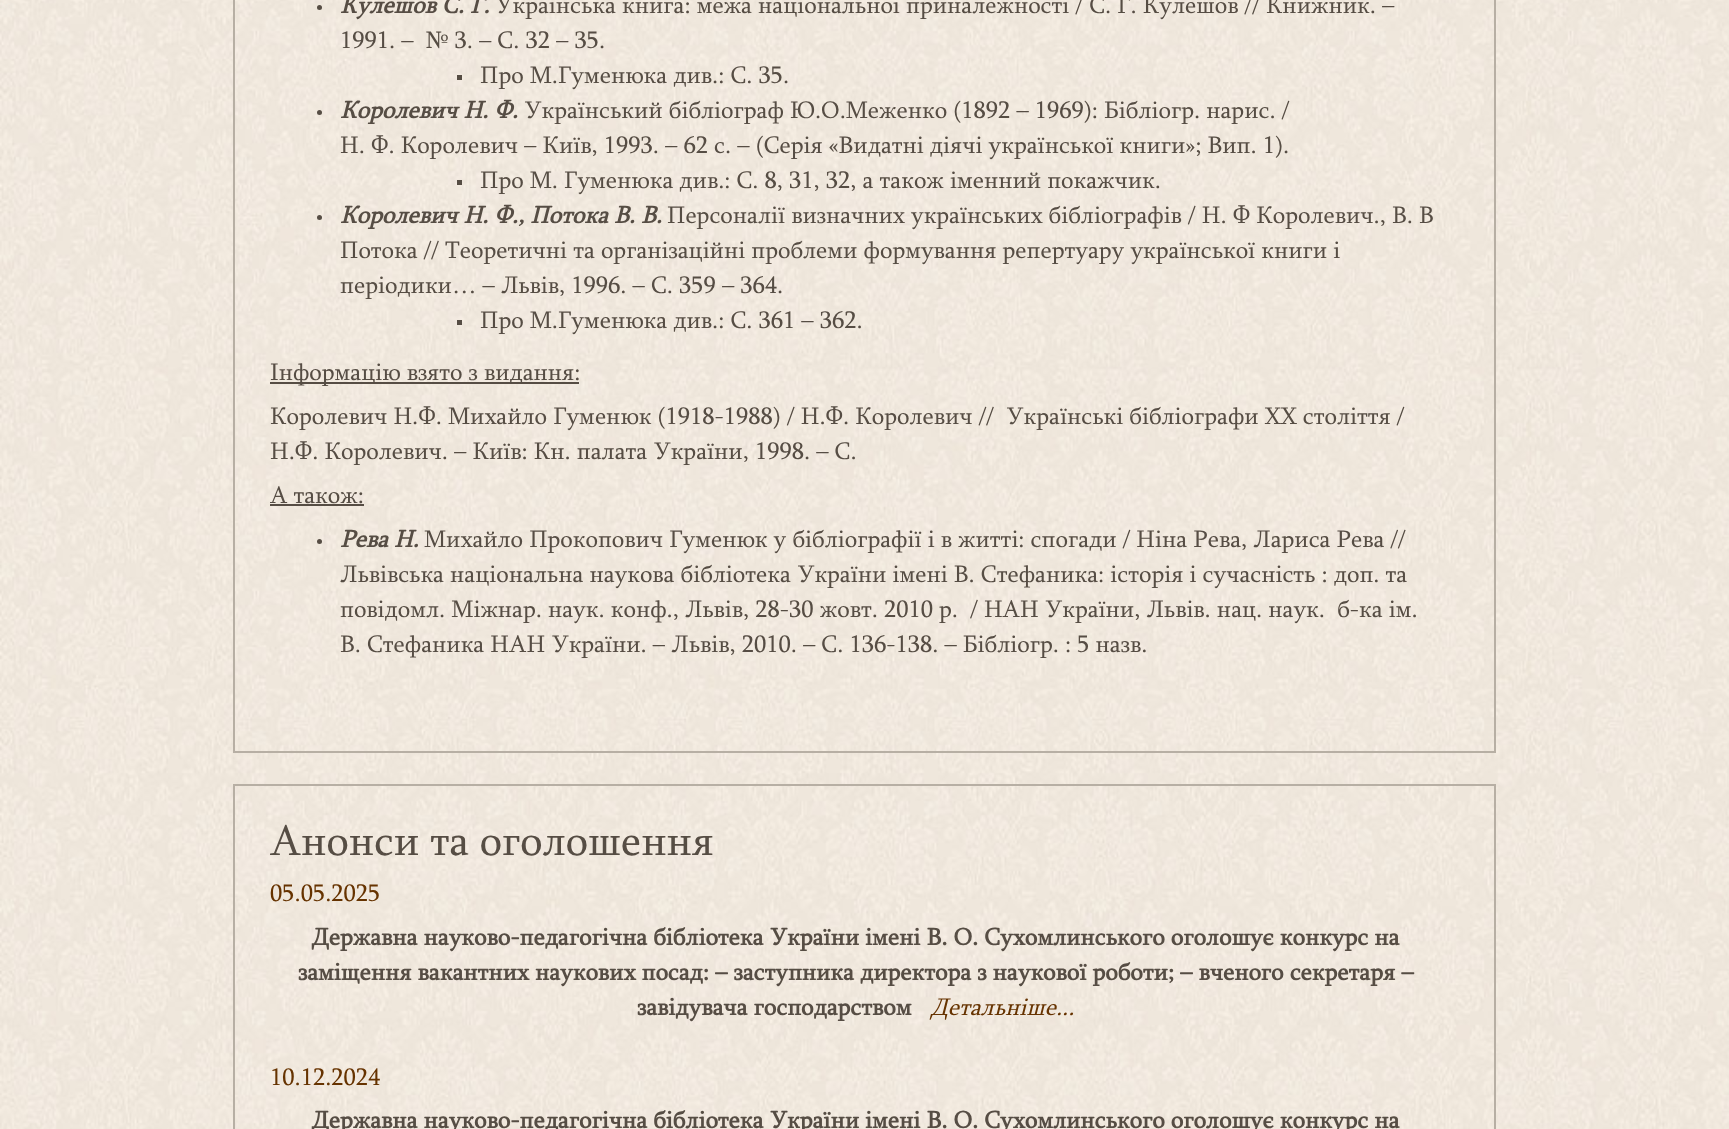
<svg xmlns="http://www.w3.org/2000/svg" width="1729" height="1129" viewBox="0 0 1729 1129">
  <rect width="100%" height="100%" fill="rgb(255,255,255)"/>
  <image x="0" y="0" width="1729" height="1129" href="pic1.png"/>
  <circle cx="319.5" cy="7.5" r="2.5" fill="rgb(86,77,68)"/>
  <rect x="457" y="75" width="5" height="5" fill="rgb(86,77,68)"/>
  <circle cx="319.5" cy="112.5" r="2.5" fill="rgb(86,77,68)"/>
  <rect x="457" y="180" width="5" height="5" fill="rgb(86,77,68)"/>
  <circle cx="319.5" cy="217.5" r="2.5" fill="rgb(86,77,68)"/>
  <rect x="457" y="320" width="5" height="5" fill="rgb(86,77,68)"/>
  <rect x="270" y="382" width="309" height="2" fill="rgb(86,77,68)"/>
  <rect x="270" y="504" width="94" height="2" fill="rgb(86,77,68)"/>
  <circle cx="319.5" cy="541.5" r="2.5" fill="rgb(86,77,68)"/>
  <rect x="234" y="-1" width="1261" height="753" fill="none" stroke="rgb(183,175,164)" stroke-width="2"/>
  <text x="340" y="13" font-family="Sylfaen" font-size="24.5" font-weight="bold" font-style="italic" fill="rgb(86,77,68)">Кулешов С. Г.</text>
  <g font-family="Sylfaen" font-size="24.5" fill="rgb(86,77,68)">
    <text x="495" y="13">Українська книга: межа національної приналежності / С. Г. Кулешов // Книжник. –</text>
    <text x="340" y="48" xml:space="preserve">1991. –  № 3. – С. 32 – 35.</text>
    <text x="480" y="83">Про М.Гуменюка див.: С. 35.</text>
  </g>
  <text x="340" y="118" font-family="Sylfaen" font-size="24.5" font-weight="bold" font-style="italic" fill="rgb(86,77,68)">Королевич Н. Ф.</text>
  <g font-family="Sylfaen" font-size="24.5" fill="rgb(86,77,68)">
    <text x="524" y="118">Український бібліограф Ю.О.Меженко (1892 – 1969): Бібліогр. нарис. /</text>
    <text x="340" y="153">Н. Ф. Королевич – Київ, 1993. – 62 с. – (Серія «Видатні діячі української книги»; Вип. 1).</text>
    <text x="480" y="188">Про М. Гуменюка див.: С. 8, 31, 32, а також іменний покажчик.</text>
  </g>
  <text x="340" y="223" font-family="Sylfaen" font-size="24.5" font-weight="bold" font-style="italic" fill="rgb(86,77,68)">Королевич Н. Ф., Потока В. В.</text>
  <g font-family="Sylfaen" font-size="24.5" fill="rgb(86,77,68)">
    <text x="667" y="223">Персоналії визначних українських бібліографів / Н. Ф Королевич., В. В</text>
    <text>
      <tspan x="340" y="258">Потока // Теоретичні та організаційні проблеми формування репертуару української книги і</tspan>
      <tspan x="340" y="293">періодики… – Львів, 1996. – С. 359 – 364.</tspan>
    </text>
    <text x="480" y="328">Про М.Гуменюка див.: С. 361 – 362.</text>
    <text xml:space="preserve"><tspan x="270" y="380">Інформацію взято з видання:</tspan><tspan x="270" y="424">Королевич Н.Ф. Михайло Гуменюк (1918-1988) / Н.Ф. Королевич //  Українські бібліографи XX століття /</tspan><tspan x="270" y="459">Н.Ф. Королевич. – Київ: Кн. палата України, 1998. – С.</tspan><tspan x="270" y="503">А також:</tspan></text>
  </g>
  <text x="340" y="547" font-family="Sylfaen" font-size="24.5" font-weight="bold" font-style="italic" fill="rgb(86,77,68)">Рева Н.</text>
  <g font-family="Sylfaen" font-size="24.5" fill="rgb(86,77,68)">
    <text x="424" y="547">Михайло Прокопович Гуменюк у бібліографії і в житті: спогади / Ніна Рева, Лариса Рева //</text>
    <text xml:space="preserve"><tspan x="340" y="582">Львівська національна наукова бібліотека України імені В. Стефаника: історія і сучасність : доп. та</tspan><tspan x="340" y="617">повідомл. Міжнар. наук. конф., Львів, 28-30 жовт. 2010 р.  / НАН України, Львів. нац. наук.  б-ка ім.</tspan><tspan x="340" y="652">В. Стефаника НАН України. – Львів, 2010. – С. 136-138. – Бібліогр. : 5 назв.</tspan></text>
  </g>
  <rect x="234" y="785" width="1261" height="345" fill="none" stroke="rgb(183,175,164)" stroke-width="2"/>
  <text x="270" y="855" font-family="Sylfaen" font-size="43.75" fill="rgb(86,77,68)">Анонси та оголошення</text>
  <text x="270" y="901" font-family="Sylfaen" font-size="24.5" fill="rgb(102,51,0)">05.05.2025</text>
  <g font-family="Sylfaen" font-size="24.5" font-weight="bold" fill="rgb(86,77,68)">
    <text x="311" y="945">Державна науково-педагогічна бібліотека України імені В. О. Сухомлинського оголошує конкурс на</text>
    <text x="298" y="980">заміщення вакантних наукових посад: – заступника директора з наукової роботи; – вченого секретаря –</text>
    <text x="637" y="1015">завідувача господарством</text>
  </g>
  <text x="930" y="1015" font-family="Sylfaen" font-size="24.5" font-style="italic" fill="rgb(102,51,0)">Детальніше...</text>
  <text x="270" y="1085" font-family="Sylfaen" font-size="24.5" fill="rgb(102,51,0)">10.12.2024</text>
  <text x="311" y="1128" font-family="Sylfaen" font-size="24.5" font-weight="bold" fill="rgb(86,77,68)">Державна науково-педагогічна бібліотека України імені В. О. Сухомлинського оголошує конкурс на</text>
</svg>
